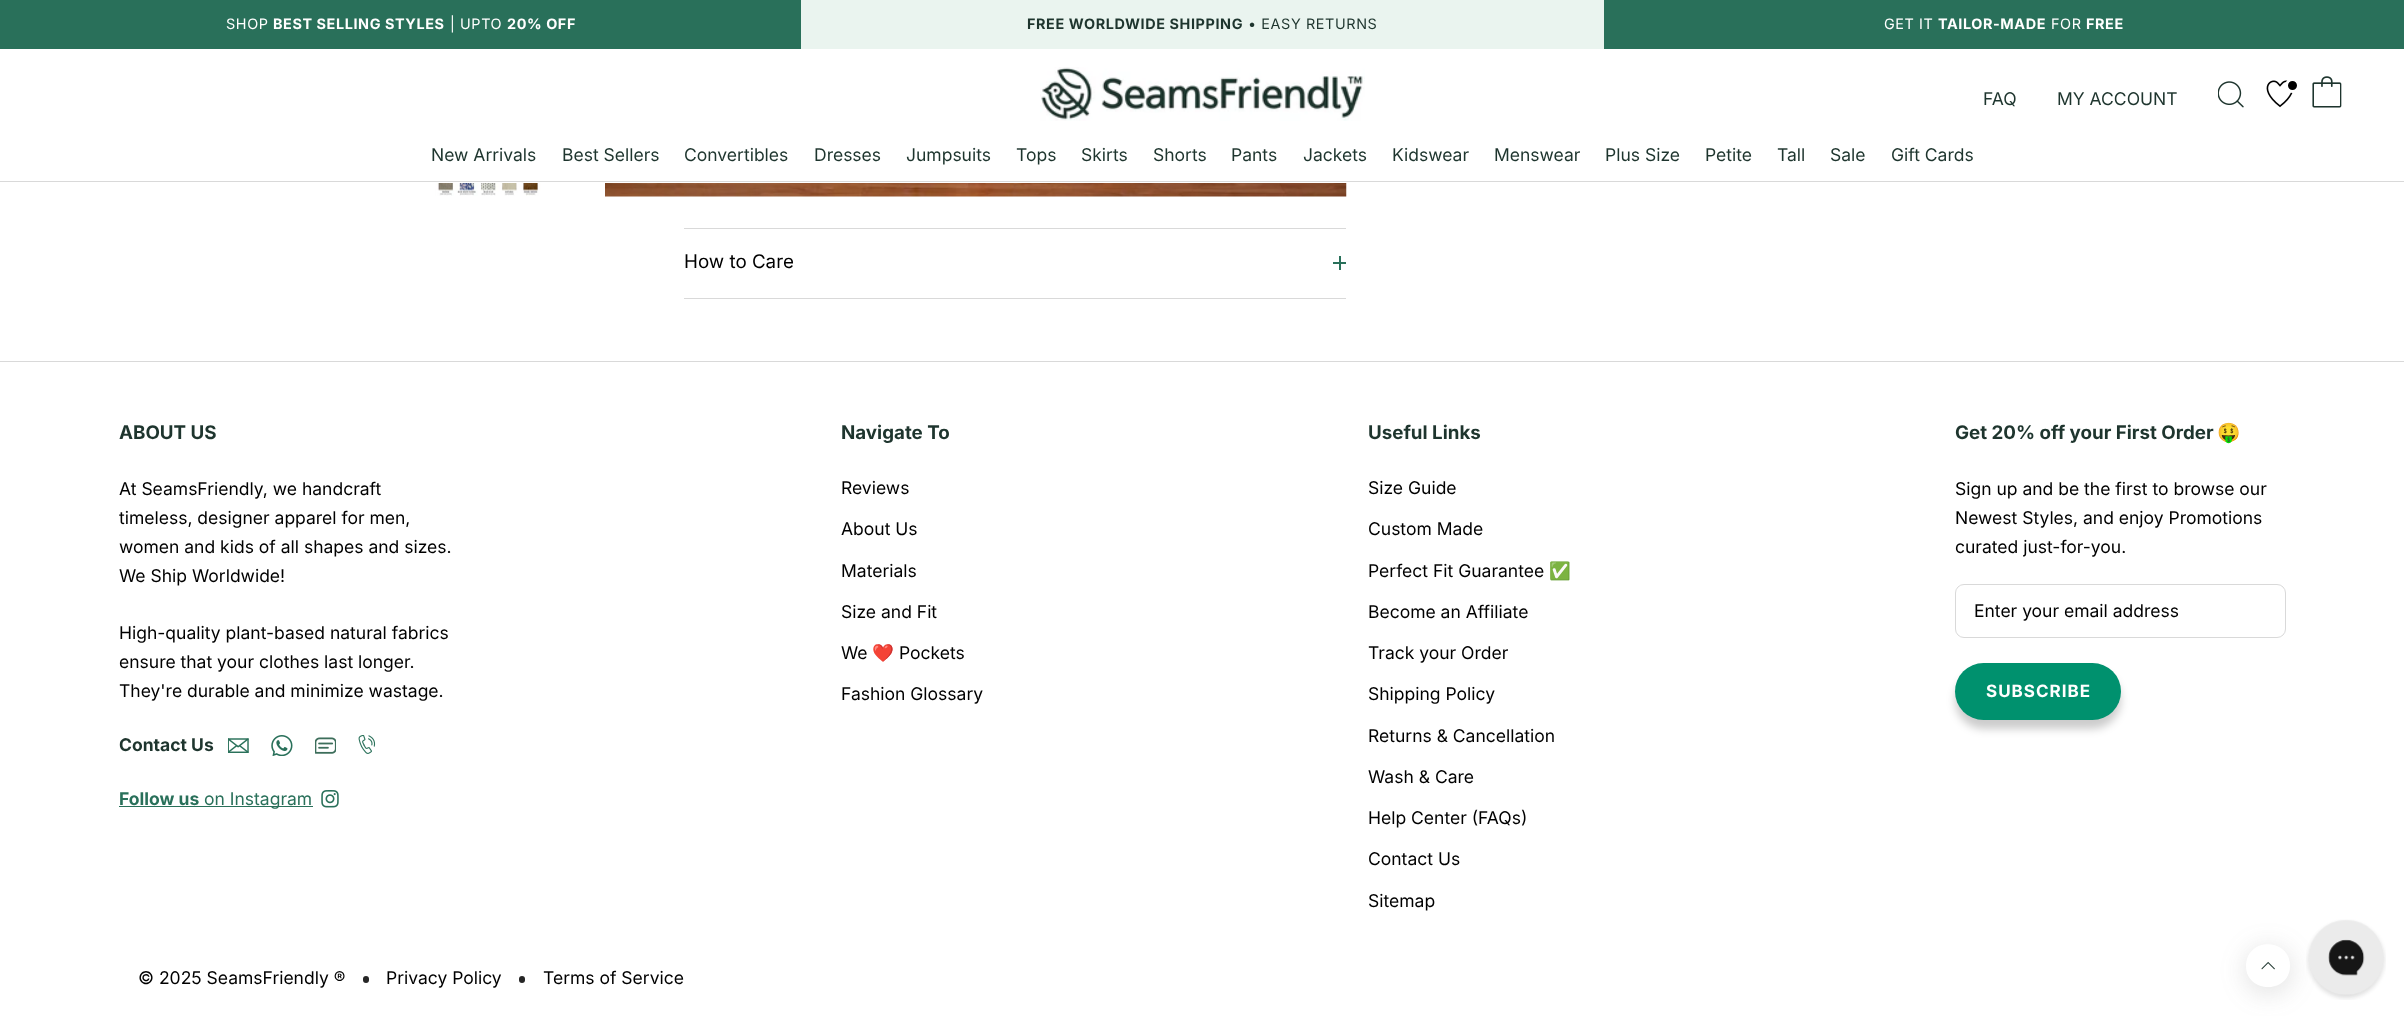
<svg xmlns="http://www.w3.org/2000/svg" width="2404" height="1016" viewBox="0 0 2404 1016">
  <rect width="100%" height="100%" fill="rgb(255,255,255)"/>
  <rect x="0" y="0" width="2404" height="49" fill="rgb(41,112,90)"/>
  <text x="226" y="29" font-family="Inter" font-size="14.4" letter-spacing="0.6" fill="rgb(255,255,255)">SHOP</text>
  <text x="273" y="29" font-family="Inter" font-size="14.4" font-weight="bold" letter-spacing="0.6" fill="rgb(255,255,255)">BEST SELLING STYLES</text>
  <text x="450" y="29" font-family="Inter" font-size="14.4" letter-spacing="0.6" fill="rgb(255,255,255)">| UPTO</text>
  <text x="507" y="29" font-family="Inter" font-size="14.4" font-weight="bold" letter-spacing="0.6" fill="rgb(255,255,255)">20% OFF</text>
  <rect x="801" y="0" width="803" height="49" fill="rgb(234,244,239)"/>
  <text x="1027" y="29" font-family="Inter" font-size="14.4" font-weight="bold" letter-spacing="0.6" fill="rgb(30,53,46)">FREE WORLDWIDE SHIPPING</text>
  <text x="1248" y="29" font-family="Inter" font-size="14.4" letter-spacing="0.6" fill="rgb(30,53,46)">• EASY RETURNS</text>
  <text x="1884" y="29" font-family="Inter" font-size="14.4" letter-spacing="0.6" fill="rgb(255,255,255)">GET IT</text>
  <text x="1938" y="29" font-family="Inter" font-size="14.4" font-weight="bold" letter-spacing="0.6" fill="rgb(255,255,255)">TAILOR-MADE</text>
  <text x="2051" y="29" font-family="Inter" font-size="14.4" letter-spacing="0.6" fill="rgb(255,255,255)">FOR</text>
  <text x="2086" y="29" font-family="Inter" font-size="14.4" font-weight="bold" letter-spacing="0.6" fill="rgb(255,255,255)">FREE</text>
  <rect x="0" y="181" width="2404" height="1" fill="rgb(217,217,217)"/>
  <image x="1040" y="67" width="325" height="54" href="pic1.png"/>
  <g font-family="Inter" font-size="17.5" fill="rgb(30,53,46)">
    <text x="1983" y="105">FAQ</text>
    <text x="2057" y="105">MY ACCOUNT</text>
  </g>
  <image x="2218" y="81" width="26" height="27" href="pic2.png"/>
  <image x="2266" y="80" width="27" height="28" href="pic3.png"/>
  <circle cx="2292.5" cy="85.5" r="6" fill="rgb(0,0,0)" stroke="rgb(255,255,255)" stroke-width="3"/>
  <image x="2312" y="76" width="30" height="32" href="pic4.png"/>
  <g font-family="Inter" font-size="17.5" fill="rgb(30,53,46)">
    <text x="431" y="161">New Arrivals</text>
    <text x="562" y="161">Best Sellers</text>
    <text x="684" y="161">Convertibles</text>
    <text x="814" y="161">Dresses</text>
    <text x="906" y="161">Jumpsuits</text>
    <text x="1016" y="161">Tops</text>
    <text x="1081" y="161">Skirts</text>
    <text x="1153" y="161">Shorts</text>
    <text x="1231" y="161">Pants</text>
    <text x="1303" y="161">Jackets</text>
    <text x="1392" y="161">Kidswear</text>
    <text x="1494" y="161">Menswear</text>
    <text x="1605" y="161">Plus Size</text>
    <text x="1705" y="161">Petite</text>
    <text x="1777" y="161">Tall</text>
    <text x="1830" y="161">Sale</text>
    <text x="1891" y="161">Gift Cards</text>
  </g>
  <image x="435" y="183" width="107" height="13" href="pic5.png"/>
  <image x="605" y="183" width="742" height="14" href="pic6.png"/>
  <rect x="684" y="228" width="662" height="1" fill="rgb(217,217,217)"/>
  <rect x="684" y="298" width="662" height="1" fill="rgb(217,217,217)"/>
  <text x="684" y="268" font-family="Inter" font-size="18.75" fill="rgb(0,0,0)">How to Care</text>
  <rect x="1339" y="256" width="2" height="14" fill="rgb(41,112,90)"/>
  <rect x="1333" y="262" width="13" height="2" fill="rgb(41,112,90)"/>
  <rect x="0" y="361" width="2404" height="1" fill="rgb(217,217,217)"/>
  <text x="119" y="439" font-family="Inter" font-size="18.75" font-weight="bold" fill="rgb(30,53,46)">ABOUT US</text>
  <g font-family="Inter" font-size="17.5" fill="rgb(0,0,0)">
    <text>
      <tspan x="119" y="495">At SeamsFriendly, we handcraft</tspan>
      <tspan x="119" y="524">timeless, designer apparel for men,</tspan>
      <tspan x="119" y="553">women and kids of all shapes and sizes.</tspan>
      <tspan x="119" y="582">We Ship Worldwide!</tspan>
    </text>
    <text>
      <tspan x="119" y="639">High-quality plant-based natural fabrics</tspan>
      <tspan x="119" y="668">ensure that your clothes last longer.</tspan>
      <tspan x="119" y="697">They're durable and minimize wastage.</tspan>
    </text>
  </g>
  <text x="119" y="751" font-family="Inter" font-size="17.5" font-weight="bold" fill="rgb(30,53,46)">Contact Us</text>
  <image x="228" y="738" width="21" height="15" href="pic7.png"/>
  <image x="271" y="735" width="22" height="21" href="pic8.png"/>
  <image x="315" y="737" width="21" height="17" href="pic9.png"/>
  <image x="358" y="735" width="18" height="19" href="pic10.png"/>
  <text x="119" y="805" font-family="Inter" font-size="17.5" font-weight="bold" fill="rgb(41,112,90)">Follow us</text>
  <rect x="119" y="806" width="194" height="1" fill="rgb(41,112,90)"/>
  <text x="204" y="805" font-family="Inter" font-size="17.5" fill="rgb(41,112,90)">on Instagram</text>
  <image x="321" y="790" width="18" height="18" href="pic11.png"/>
  <text x="841" y="439" font-family="Inter" font-size="18.75" font-weight="bold" fill="rgb(30,53,46)">Navigate To</text>
  <g font-family="Inter" font-size="17.5" fill="rgb(0,0,0)">
    <text x="841" y="494">Reviews</text>
    <text x="841" y="535">About Us</text>
    <text x="841" y="577">Materials</text>
    <text x="841" y="618">Size and Fit</text>
    <text x="841" y="659">We</text>
  </g>
  <text x="872" y="659" font-family="Noto Color Emoji" font-size="17.5" fill="rgb(0,0,0)">❤️</text>
  <g font-family="Inter" font-size="17.5" fill="rgb(0,0,0)">
    <text x="899" y="659">Pockets</text>
    <text x="841" y="700">Fashion Glossary</text>
  </g>
  <text x="1368" y="439" font-family="Inter" font-size="18.75" font-weight="bold" fill="rgb(30,53,46)">Useful Links</text>
  <g font-family="Inter" font-size="17.5" fill="rgb(0,0,0)">
    <text x="1368" y="494">Size Guide</text>
    <text x="1368" y="535">Custom Made</text>
    <text x="1368" y="577">Perfect Fit Guarantee</text>
  </g>
  <text x="1549" y="577" font-family="Noto Color Emoji" font-size="17.5" fill="rgb(0,0,0)">✅</text>
  <g font-family="Inter" font-size="17.5" fill="rgb(0,0,0)">
    <text x="1368" y="618">Become an Affiliate</text>
    <text x="1368" y="659">Track your Order</text>
    <text x="1368" y="700">Shipping Policy</text>
    <text x="1368" y="742">Returns &amp; Cancellation</text>
    <text x="1368" y="783">Wash &amp; Care</text>
    <text x="1368" y="824">Help Center (FAQs)</text>
    <text x="1368" y="865">Contact Us</text>
    <text x="1368" y="907">Sitemap</text>
  </g>
  <text x="1955" y="439" font-family="Inter" font-size="18.75" font-weight="bold" fill="rgb(30,53,46)">Get 20% off your First Order</text>
  <text x="2217" y="439" font-family="Noto Color Emoji" font-size="18.75" font-weight="bold" fill="rgb(30,53,46)">🤑</text>
  <g font-family="Inter" font-size="17.5" fill="rgb(0,0,0)">
    <text>
      <tspan x="1955" y="495">Sign up and be the first to browse our</tspan>
      <tspan x="1955" y="524">Newest Styles, and enjoy Promotions</tspan>
      <tspan x="1955" y="553">curated just-for-you.</tspan>
    </text>
  </g>
  <rect x="1955.5" y="584.5" width="330" height="53" rx="8.5" fill="none" stroke="rgb(217,217,217)"/>
  <text x="1974" y="617" font-family="Inter" font-size="17.5" fill="rgb(0,0,0)">Enter your email address</text>
  <rect x="1955" y="671" width="166" height="58" rx="29" fill="rgba(0,0,0,0.2)" filter="blur(4px)"/>
  <rect x="1955" y="663" width="166" height="57" rx="28.5" fill="rgb(0,145,110)"/>
  <text x="1986" y="697" font-family="Inter" font-size="17" font-weight="bold" letter-spacing="1" fill="rgb(255,255,255)">SUBSCRIBE</text>
  <text x="138" y="984" font-family="Inter" font-size="17.5" fill="rgb(0,0,0)">© 2025 SeamsFriendly ®</text>
  <rect x="363" y="976" width="6" height="7" rx="3" fill="rgb(38,38,38)"/>
  <text x="386" y="984" font-family="Inter" font-size="17.5" fill="rgb(0,0,0)">Privacy Policy</text>
  <rect x="519" y="976" width="6" height="7" rx="3" fill="rgb(38,38,38)"/>
  <text x="543" y="984" font-family="Inter" font-size="17.5" fill="rgb(0,0,0)">Terms of Service</text>
  <rect x="2244" y="946" width="49" height="49" rx="24.5" fill="rgba(102,102,102,0.17)" filter="blur(12.5px)"/>
  <path d="M2246 966C2246 937 2290 937 2290 966C2290 994 2246 994 2246 966Z" fill="rgb(255,255,255)"/>
  <image x="2261" y="961" width="14" height="9" href="pic12.png"/>
  <image x="2306" y="919" width="80" height="81" href="pic13.png"/>
</svg>
